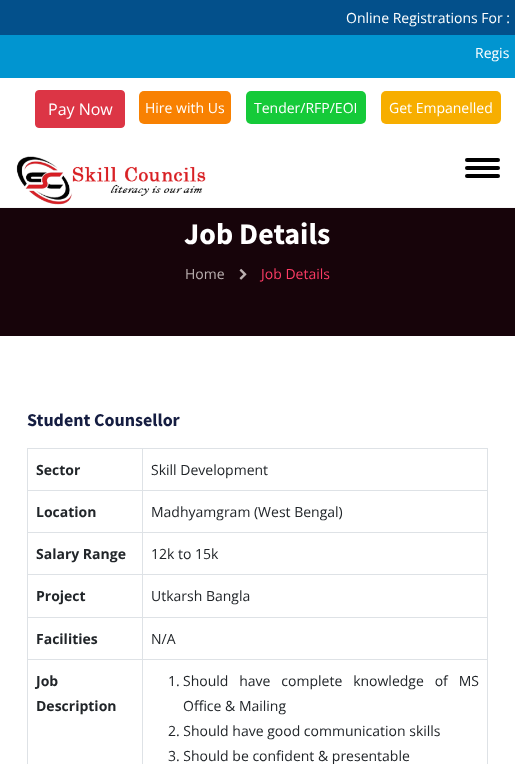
<svg xmlns="http://www.w3.org/2000/svg" width="515" height="764" viewBox="0 0 515 764">
  <rect width="100%" height="100%" fill="rgb(255,255,255)"/>
  <rect x="0" y="0" width="515" height="35" fill="rgb(3,80,139)"/>
  <text x="346" y="23" font-family="Open Sans" font-size="14" fill="rgb(255,255,255)">Online Registrations For :</text>
  <rect x="0" y="35" width="515" height="43" fill="rgb(1,149,208)"/>
  <text x="475" y="58" font-family="Open Sans" font-size="14" fill="rgb(255,255,255)">Regis</text>
  <rect x="35.5" y="90.5" width="89" height="37" rx="3.5" fill="rgb(220,53,69)" stroke="rgb(220,53,69)"/>
  <text x="48" y="115" font-family="Open Sans" font-size="16" fill="rgb(255,255,255)">Pay Now</text>
  <rect x="139" y="91" width="92" height="33" rx="5" fill="rgb(248,129,2)"/>
  <text x="145" y="113" font-family="Open Sans" font-size="14" fill="rgb(255,255,255)">Hire with Us</text>
  <rect x="246" y="91" width="120" height="33" rx="5" fill="rgb(21,202,57)"/>
  <text x="254" y="113" font-family="Open Sans" font-size="14" fill="rgb(255,255,255)">Tender/RFP/EOI</text>
  <rect x="381" y="91" width="120" height="33" rx="5" fill="rgb(247,174,0)"/>
  <text x="389" y="113" font-family="Open Sans" font-size="14" fill="rgb(255,255,255)">Get Empanelled</text>
  <image x="16" y="156" width="190" height="49" href="pic1.png"/>
  <rect x="0" y="207" width="515" height="1" fill="rgb(247,247,247)"/>
  <rect x="465" y="158" width="35" height="4" rx="2" fill="rgb(0,0,0)"/>
  <rect x="465" y="166" width="35" height="4" rx="2" fill="rgb(0,0,0)"/>
  <rect x="465" y="174" width="35" height="4" rx="2" fill="rgb(0,0,0)"/>
  <rect x="0" y="208" width="515" height="128" fill="rgb(23,4,10)"/>
  <text x="184" y="244" font-family="Source Sans Pro" font-size="30" font-weight="bold" fill="rgb(255,255,255)">Job Details</text>
  <text x="185" y="279" font-family="Open Sans" font-size="14" fill="rgb(186,176,176)">Home</text>
  <image x="239" y="268" width="8" height="12" href="pic2.png"/>
  <text x="261" y="279" font-family="Open Sans" font-size="14" fill="rgb(253,60,101)">Job Details</text>
  <text x="27" y="426" font-family="Source Sans Pro" font-size="18" font-weight="bold" fill="rgb(21,29,65)">Student Counsellor</text>
  <rect x="27" y="448" width="461" height="1" fill="rgb(222,226,230)"/>
  <text x="36" y="475" font-family="Open Sans" font-size="14" font-weight="bold" fill="rgb(33,37,41)">Sector</text>
  <text x="151" y="475" font-family="Open Sans" font-size="14" fill="rgb(33,37,41)">Skill Development</text>
  <rect x="27" y="490" width="461" height="1" fill="rgb(222,226,230)"/>
  <text x="36" y="517" font-family="Open Sans" font-size="14" font-weight="bold" fill="rgb(33,37,41)">Location</text>
  <text x="151" y="517" font-family="Open Sans" font-size="14" fill="rgb(33,37,41)">Madhyamgram (West Bengal)</text>
  <rect x="27" y="532" width="461" height="1" fill="rgb(222,226,230)"/>
  <text x="36" y="559" font-family="Open Sans" font-size="14" font-weight="bold" fill="rgb(33,37,41)">Salary Range</text>
  <text x="151" y="559" font-family="Open Sans" font-size="14" fill="rgb(33,37,41)">12k to 15k</text>
  <rect x="27" y="574" width="461" height="1" fill="rgb(222,226,230)"/>
  <text x="36" y="601" font-family="Open Sans" font-size="14" font-weight="bold" fill="rgb(33,37,41)">Project</text>
  <text x="151" y="601" font-family="Open Sans" font-size="14" fill="rgb(33,37,41)">Utkarsh Bangla</text>
  <rect x="27" y="617" width="461" height="1" fill="rgb(222,226,230)"/>
  <text x="36" y="644" font-family="Open Sans" font-size="14" font-weight="bold" fill="rgb(33,37,41)">Facilities</text>
  <text x="151" y="644" font-family="Open Sans" font-size="14" fill="rgb(33,37,41)">N/A</text>
  <rect x="27" y="659" width="461" height="1" fill="rgb(222,226,230)"/>
  <rect x="27" y="448" width="1" height="316" fill="rgb(222,226,230)"/>
  <g font-family="Open Sans" font-size="14" font-weight="bold" fill="rgb(33,37,41)">
    <text>
      <tspan x="36" y="686">Job</tspan>
      <tspan x="36" y="711">Description</tspan>
    </text>
  </g>
  <rect x="487" y="448" width="1" height="316" fill="rgb(222,226,230)"/>
  <rect x="142" y="448" width="1" height="316" fill="rgb(222,226,230)"/>
  <g font-family="Open Sans" font-size="14" fill="rgb(33,37,41)">
    <text x="168" y="686">1.</text>
    <text>
      <tspan x="183" y="686" word-spacing="7.25">Should have complete knowledge of MS</tspan>
      <tspan x="183" y="711">Office &amp; Mailing</tspan>
    </text>
    <text>
      <tspan x="168" y="736">2. Should have good communication skills</tspan>
      <tspan x="168" y="761">3. Should be confident &amp; presentable</tspan>
    </text>
  </g>
</svg>
